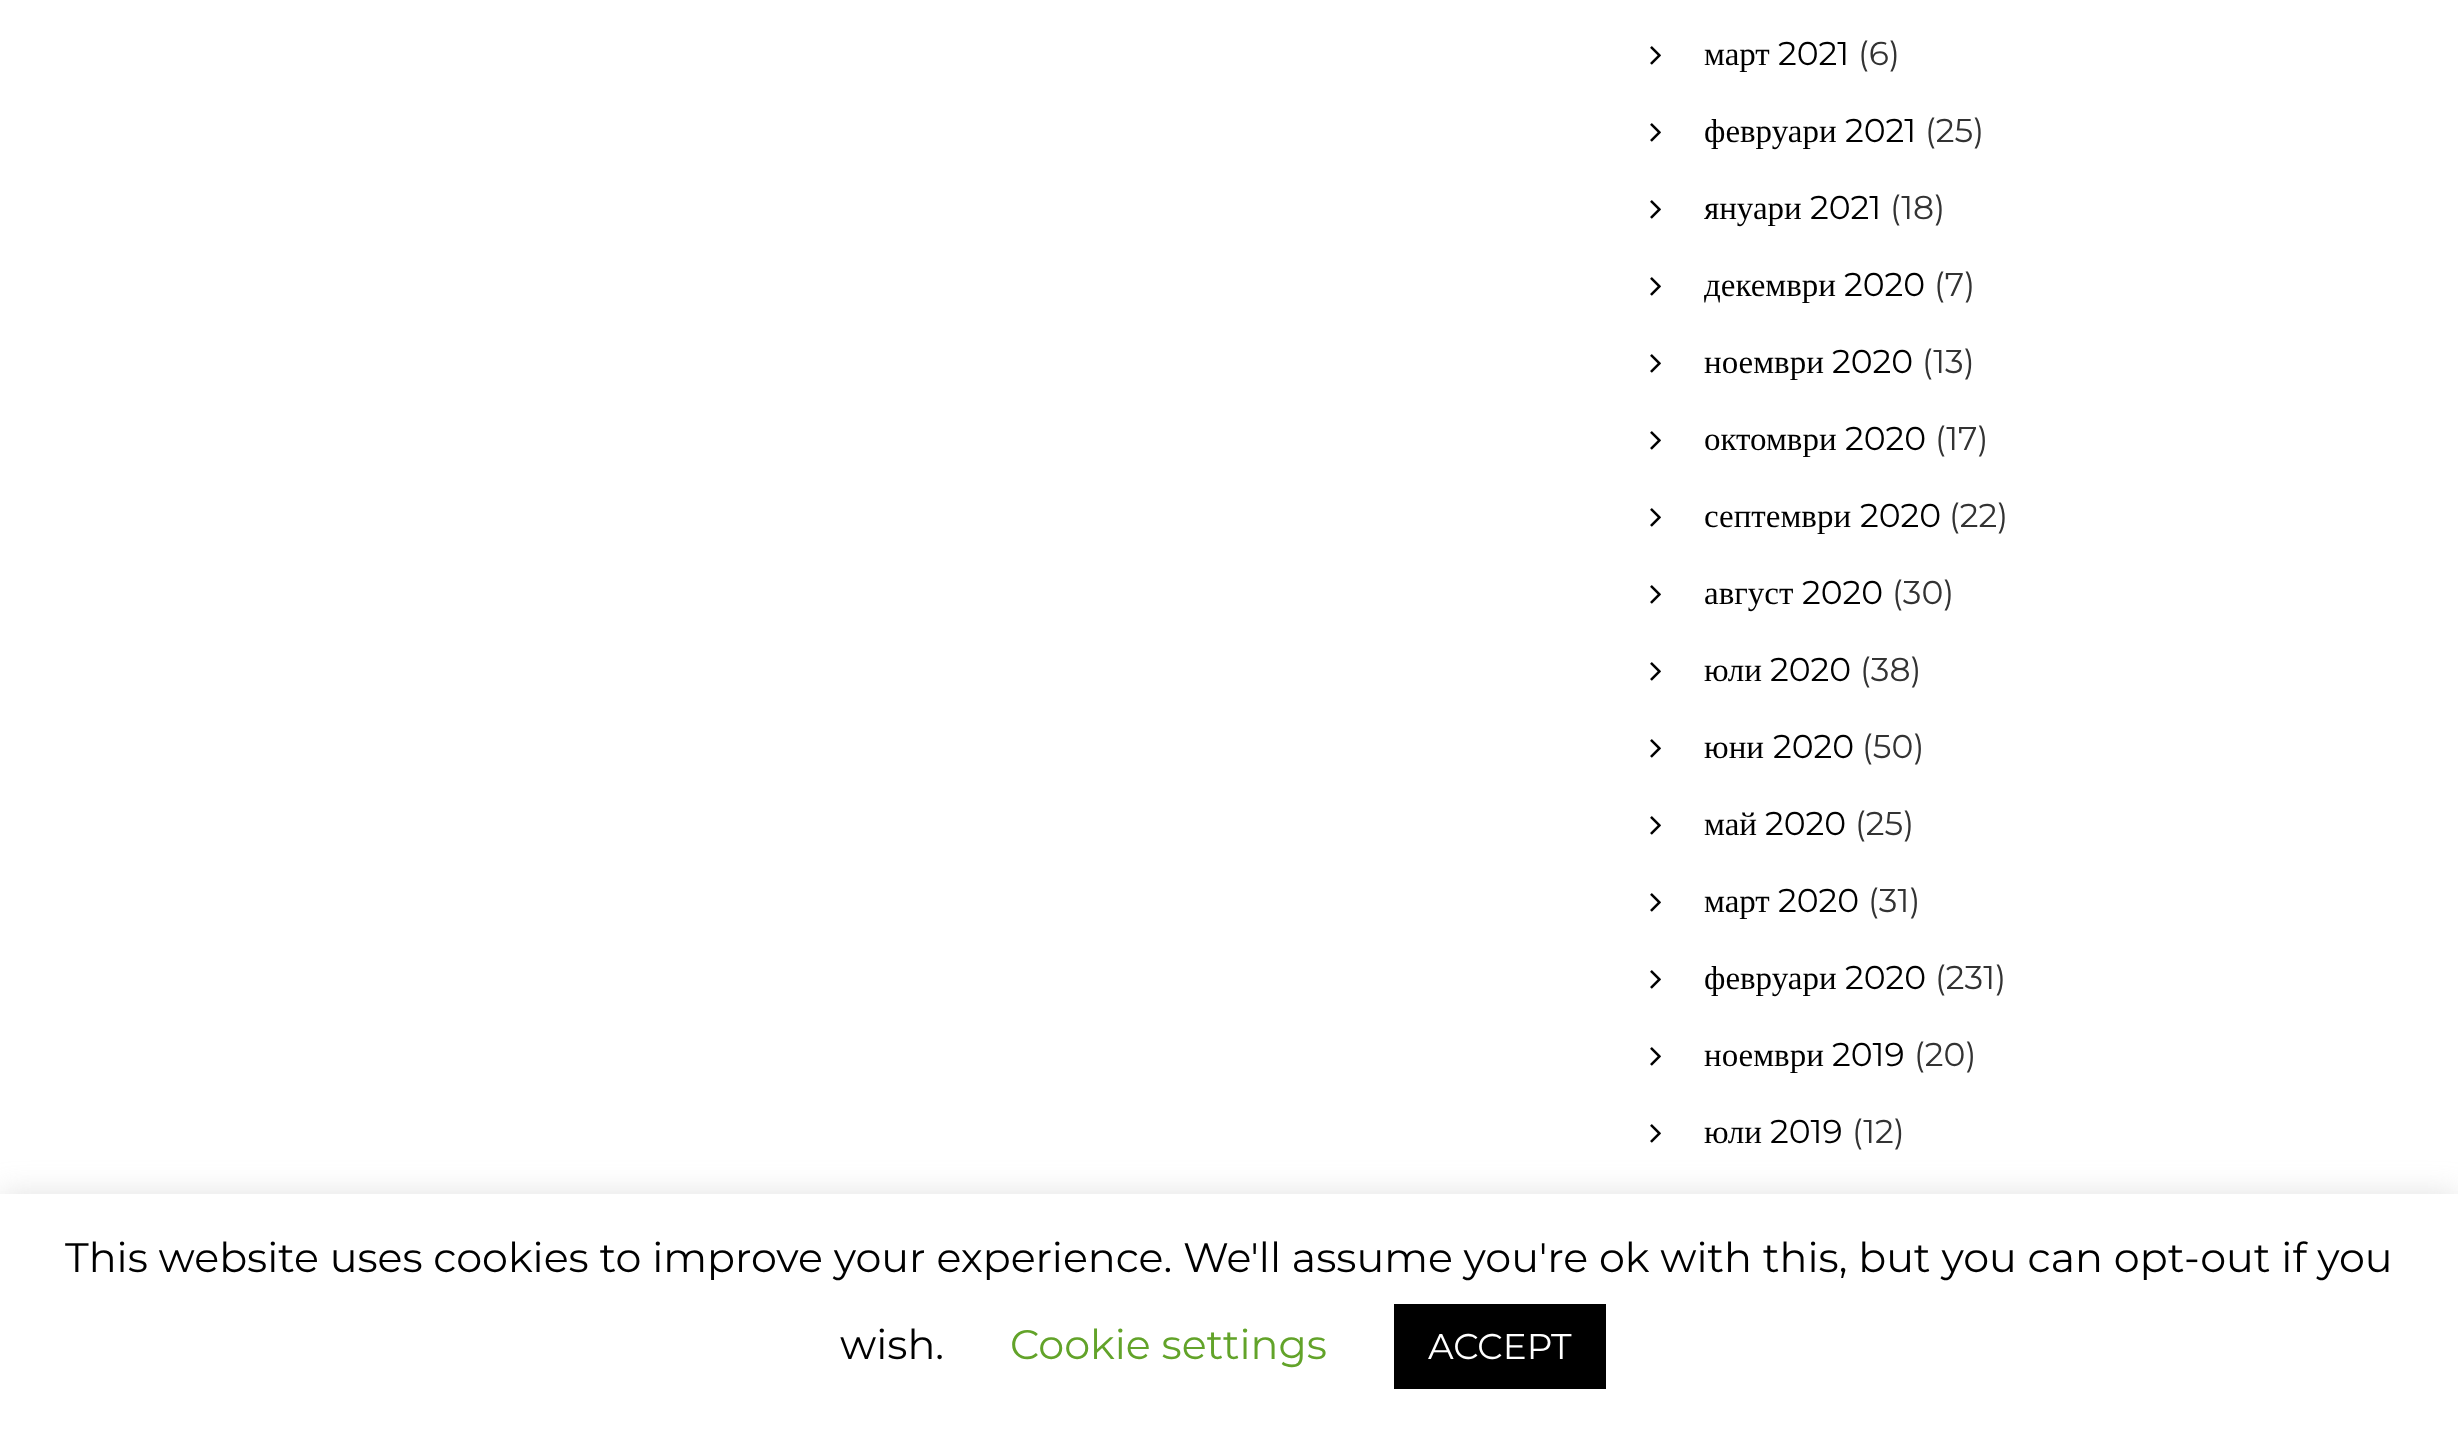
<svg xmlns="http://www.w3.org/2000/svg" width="2458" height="1435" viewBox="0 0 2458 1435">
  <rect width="100%" height="100%" fill="rgb(255,255,255)"/>
  <image x="1650" y="46" width="11" height="19" href="pic1.png"/>
  <text x="1704" y="65" font-family="Liberation Serif" font-size="33" fill="rgb(0,0,0)">март</text>
  <text x="1778" y="65" font-family="Montserrat" font-size="33" fill="rgb(0,0,0)">2021</text>
  <text x="1858" y="65" font-family="Montserrat" font-size="33" fill="rgb(51,51,51)">(6)</text>
  <image x="1650" y="123" width="11" height="19" href="pic1.png"/>
  <text x="1704" y="142" font-family="Liberation Serif" font-size="33" fill="rgb(0,0,0)">февруари</text>
  <text x="1845" y="142" font-family="Montserrat" font-size="33" fill="rgb(0,0,0)">2021</text>
  <text x="1925" y="142" font-family="Montserrat" font-size="33" fill="rgb(51,51,51)">(25)</text>
  <image x="1650" y="200" width="11" height="19" href="pic1.png"/>
  <text x="1704" y="219" font-family="Liberation Serif" font-size="33" fill="rgb(0,0,0)">януари</text>
  <text x="1810" y="219" font-family="Montserrat" font-size="33" fill="rgb(0,0,0)">2021</text>
  <text x="1890" y="219" font-family="Montserrat" font-size="33" fill="rgb(51,51,51)">(18)</text>
  <image x="1650" y="277" width="11" height="19" href="pic1.png"/>
  <text x="1704" y="296" font-family="Liberation Serif" font-size="33" fill="rgb(0,0,0)">декември</text>
  <text x="1844" y="296" font-family="Montserrat" font-size="33" fill="rgb(0,0,0)">2020</text>
  <text x="1934" y="296" font-family="Montserrat" font-size="33" fill="rgb(51,51,51)">(7)</text>
  <image x="1650" y="354" width="11" height="19" href="pic1.png"/>
  <text x="1704" y="373" font-family="Liberation Serif" font-size="33" fill="rgb(0,0,0)">ноември</text>
  <text x="1832" y="373" font-family="Montserrat" font-size="33" fill="rgb(0,0,0)">2020</text>
  <text x="1922" y="373" font-family="Montserrat" font-size="33" fill="rgb(51,51,51)">(13)</text>
  <image x="1650" y="431" width="11" height="19" href="pic1.png"/>
  <text x="1704" y="450" font-family="Liberation Serif" font-size="33" fill="rgb(0,0,0)">октомври</text>
  <text x="1845" y="450" font-family="Montserrat" font-size="33" fill="rgb(0,0,0)">2020</text>
  <text x="1935" y="450" font-family="Montserrat" font-size="33" fill="rgb(51,51,51)">(17)</text>
  <image x="1650" y="508" width="11" height="19" href="pic1.png"/>
  <text x="1704" y="527" font-family="Liberation Serif" font-size="33" fill="rgb(0,0,0)">септември</text>
  <text x="1860" y="527" font-family="Montserrat" font-size="33" fill="rgb(0,0,0)">2020</text>
  <text x="1949" y="527" font-family="Montserrat" font-size="33" fill="rgb(51,51,51)">(22)</text>
  <image x="1650" y="585" width="11" height="19" href="pic1.png"/>
  <text x="1704" y="604" font-family="Liberation Serif" font-size="33" fill="rgb(0,0,0)">август</text>
  <text x="1802" y="604" font-family="Montserrat" font-size="33" fill="rgb(0,0,0)">2020</text>
  <text x="1892" y="604" font-family="Montserrat" font-size="33" fill="rgb(51,51,51)">(30)</text>
  <image x="1650" y="662" width="11" height="19" href="pic1.png"/>
  <text x="1704" y="681" font-family="Liberation Serif" font-size="33" fill="rgb(0,0,0)">юли</text>
  <text x="1770" y="681" font-family="Montserrat" font-size="33" fill="rgb(0,0,0)">2020</text>
  <text x="1860" y="681" font-family="Montserrat" font-size="33" fill="rgb(51,51,51)">(38)</text>
  <image x="1650" y="739" width="11" height="19" href="pic1.png"/>
  <text x="1704" y="758" font-family="Liberation Serif" font-size="33" fill="rgb(0,0,0)">юни</text>
  <text x="1773" y="758" font-family="Montserrat" font-size="33" fill="rgb(0,0,0)">2020</text>
  <text x="1862" y="758" font-family="Montserrat" font-size="33" fill="rgb(51,51,51)">(50)</text>
  <image x="1650" y="816" width="11" height="19" href="pic1.png"/>
  <text x="1704" y="835" font-family="Liberation Serif" font-size="33" fill="rgb(0,0,0)">май</text>
  <text x="1765" y="835" font-family="Montserrat" font-size="33" fill="rgb(0,0,0)">2020</text>
  <text x="1855" y="835" font-family="Montserrat" font-size="33" fill="rgb(51,51,51)">(25)</text>
  <image x="1650" y="893" width="11" height="19" href="pic1.png"/>
  <text x="1704" y="912" font-family="Liberation Serif" font-size="33" fill="rgb(0,0,0)">март</text>
  <text x="1778" y="912" font-family="Montserrat" font-size="33" fill="rgb(0,0,0)">2020</text>
  <text x="1868" y="912" font-family="Montserrat" font-size="33" fill="rgb(51,51,51)">(31)</text>
  <image x="1650" y="970" width="11" height="19" href="pic1.png"/>
  <text x="1704" y="989" font-family="Liberation Serif" font-size="33" fill="rgb(0,0,0)">февруари</text>
  <text x="1845" y="989" font-family="Montserrat" font-size="33" fill="rgb(0,0,0)">2020</text>
  <text x="1935" y="989" font-family="Montserrat" font-size="33" fill="rgb(51,51,51)">(231)</text>
  <image x="1650" y="1047" width="11" height="19" href="pic1.png"/>
  <text x="1704" y="1066" font-family="Liberation Serif" font-size="33" fill="rgb(0,0,0)">ноември</text>
  <text x="1832" y="1066" font-family="Montserrat" font-size="33" fill="rgb(0,0,0)">2019</text>
  <text x="1914" y="1066" font-family="Montserrat" font-size="33" fill="rgb(51,51,51)">(20)</text>
  <image x="1650" y="1124" width="11" height="19" href="pic1.png"/>
  <text x="1704" y="1143" font-family="Liberation Serif" font-size="33" fill="rgb(0,0,0)">юли</text>
  <text x="1770" y="1143" font-family="Montserrat" font-size="33" fill="rgb(0,0,0)">2019</text>
  <text x="1852" y="1143" font-family="Montserrat" font-size="33" fill="rgb(51,51,51)">(12)</text>
  <rect x="0" y="1191" width="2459" height="242" fill="rgba(172,171,171,0.3)" filter="blur(14px)"/>
  <rect x="0" y="1194" width="2458" height="241" fill="rgb(255,255,255)"/>
  <g font-family="Montserrat" font-size="41.25" fill="rgb(0,0,0)">
    <text x="65" y="1272">This website uses cookies to improve your experience. We'll assume you're ok with this, but you can opt-out if you</text>
    <text x="840" y="1359">wish.</text>
  </g>
  <text x="1010" y="1359" font-family="Montserrat" font-size="41.25" fill="rgb(98,163,41)">Cookie settings</text>
  <rect x="1394" y="1304" width="212" height="85" fill="rgb(0,0,0)"/>
  <text x="1428" y="1359" font-family="Montserrat" font-size="35.75" fill="rgb(255,255,255)">ACCEPT</text>
</svg>
